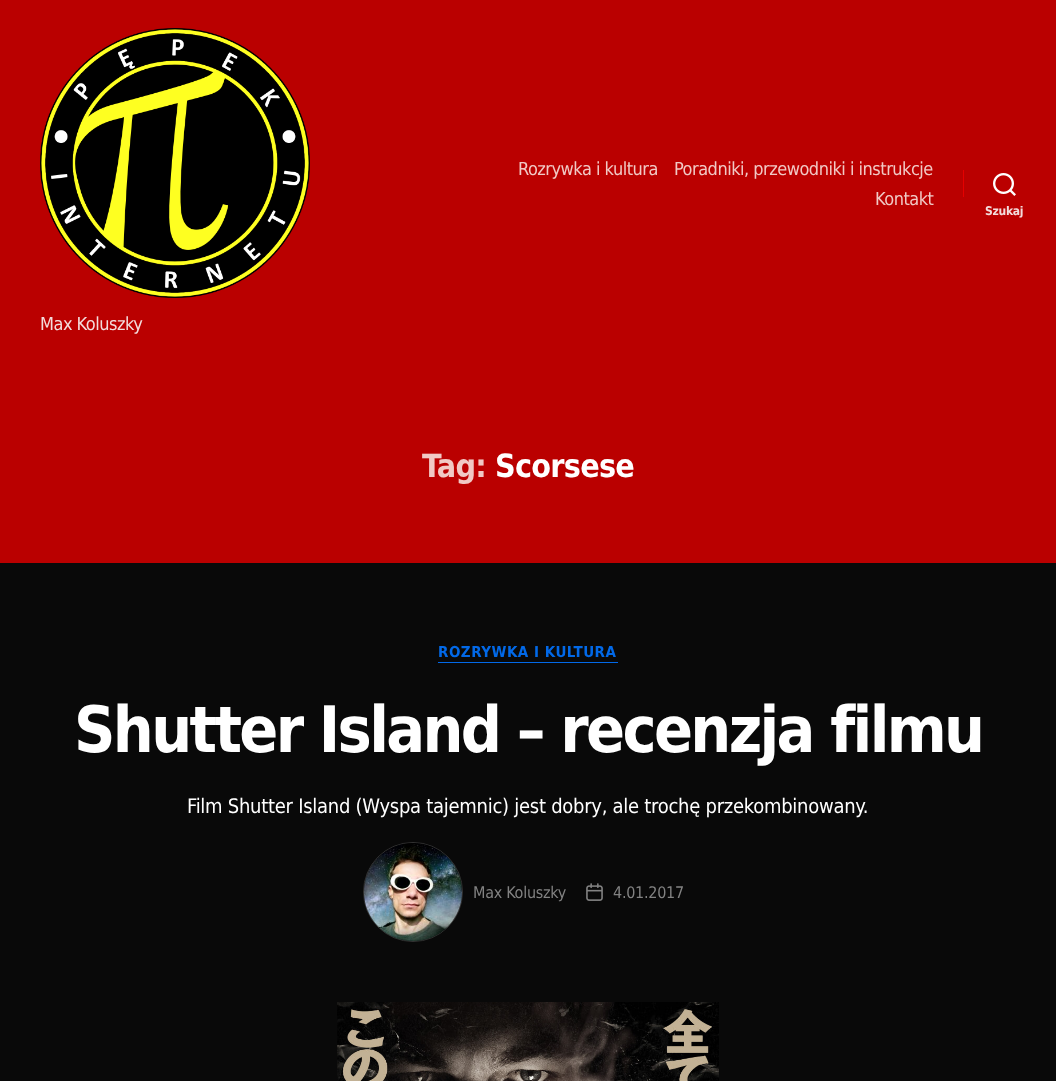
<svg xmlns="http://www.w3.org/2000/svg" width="1056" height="1081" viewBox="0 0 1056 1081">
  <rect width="100%" height="100%" fill="rgb(9,9,9)"/>
  <rect x="0" y="0" width="1056" height="563" fill="rgb(186,0,0)"/>
  <g font-family="DejaVu Sans" font-size="18" letter-spacing="-0.5" fill="rgb(241,201,197)">
    <text x="518" y="175">Rozrywka i kultura</text>
    <text x="674" y="175">Poradniki, przewodniki i instrukcje</text>
    <text x="875" y="205">Kontakt</text>
  </g>
  <rect x="963" y="170" width="1" height="27" fill="rgb(229,0,0)"/>
  <image x="993" y="173" width="23" height="23" href="pic1.png"/>
  <text x="985" y="215" font-family="DejaVu Sans" font-size="12" font-weight="bold" letter-spacing="-0.27" fill="rgb(243,220,220)">Szukaj</text>
  <image x="40" y="28" width="270" height="270" href="pic2.png"/>
  <text x="40" y="330" font-family="DejaVu Sans" font-size="18" letter-spacing="-0.5" fill="rgb(243,220,220)">Max Koluszky</text>
  <text x="422" y="477" font-family="DejaVu Sans" font-size="32" font-weight="bold" letter-spacing="-0.75" fill="rgb(241,201,197)">Tag:</text>
  <text x="495" y="477" font-family="DejaVu Sans" font-size="32" font-weight="bold" letter-spacing="-0.75" fill="rgb(255,255,255)">Scorsese</text>
  <rect x="438" y="662" width="180" height="1" fill="rgb(2,105,232)"/>
  <text x="438" y="657" font-family="DejaVu Sans" font-size="15" font-weight="bold" letter-spacing="0.5" fill="rgb(2,105,232)">ROZRYWKA I KULTURA</text>
  <text x="74" y="752" font-family="DejaVu Sans" font-size="64" font-weight="bold" letter-spacing="-2.65" fill="rgb(255,255,255)">Shutter Island – recenzja filmu</text>
  <text x="187" y="813" font-family="DejaVu Sans" font-size="20" letter-spacing="-0.27" fill="rgb(255,255,255)">Film Shutter Island (Wyspa tajemnic) jest dobry, ale trochę przekombinowany.</text>
  <circle cx="413" cy="892" r="49.5" fill="none" stroke="rgb(51,51,51)"/>
  <image x="364" y="843" width="98" height="98" href="pic3.png"/>
  <text x="473" y="898" font-family="DejaVu Sans" font-size="16" letter-spacing="-0.27" fill="rgb(130,130,130)">Max Koluszky</text>
  <image x="586" y="883" width="17" height="18" href="pic4.png"/>
  <text x="613" y="898" font-family="DejaVu Sans" font-size="16" letter-spacing="-0.27" fill="rgb(130,130,130)">4.01.2017</text>
  <image x="337" y="1002" width="382" height="79" href="pic5.png"/>
</svg>
